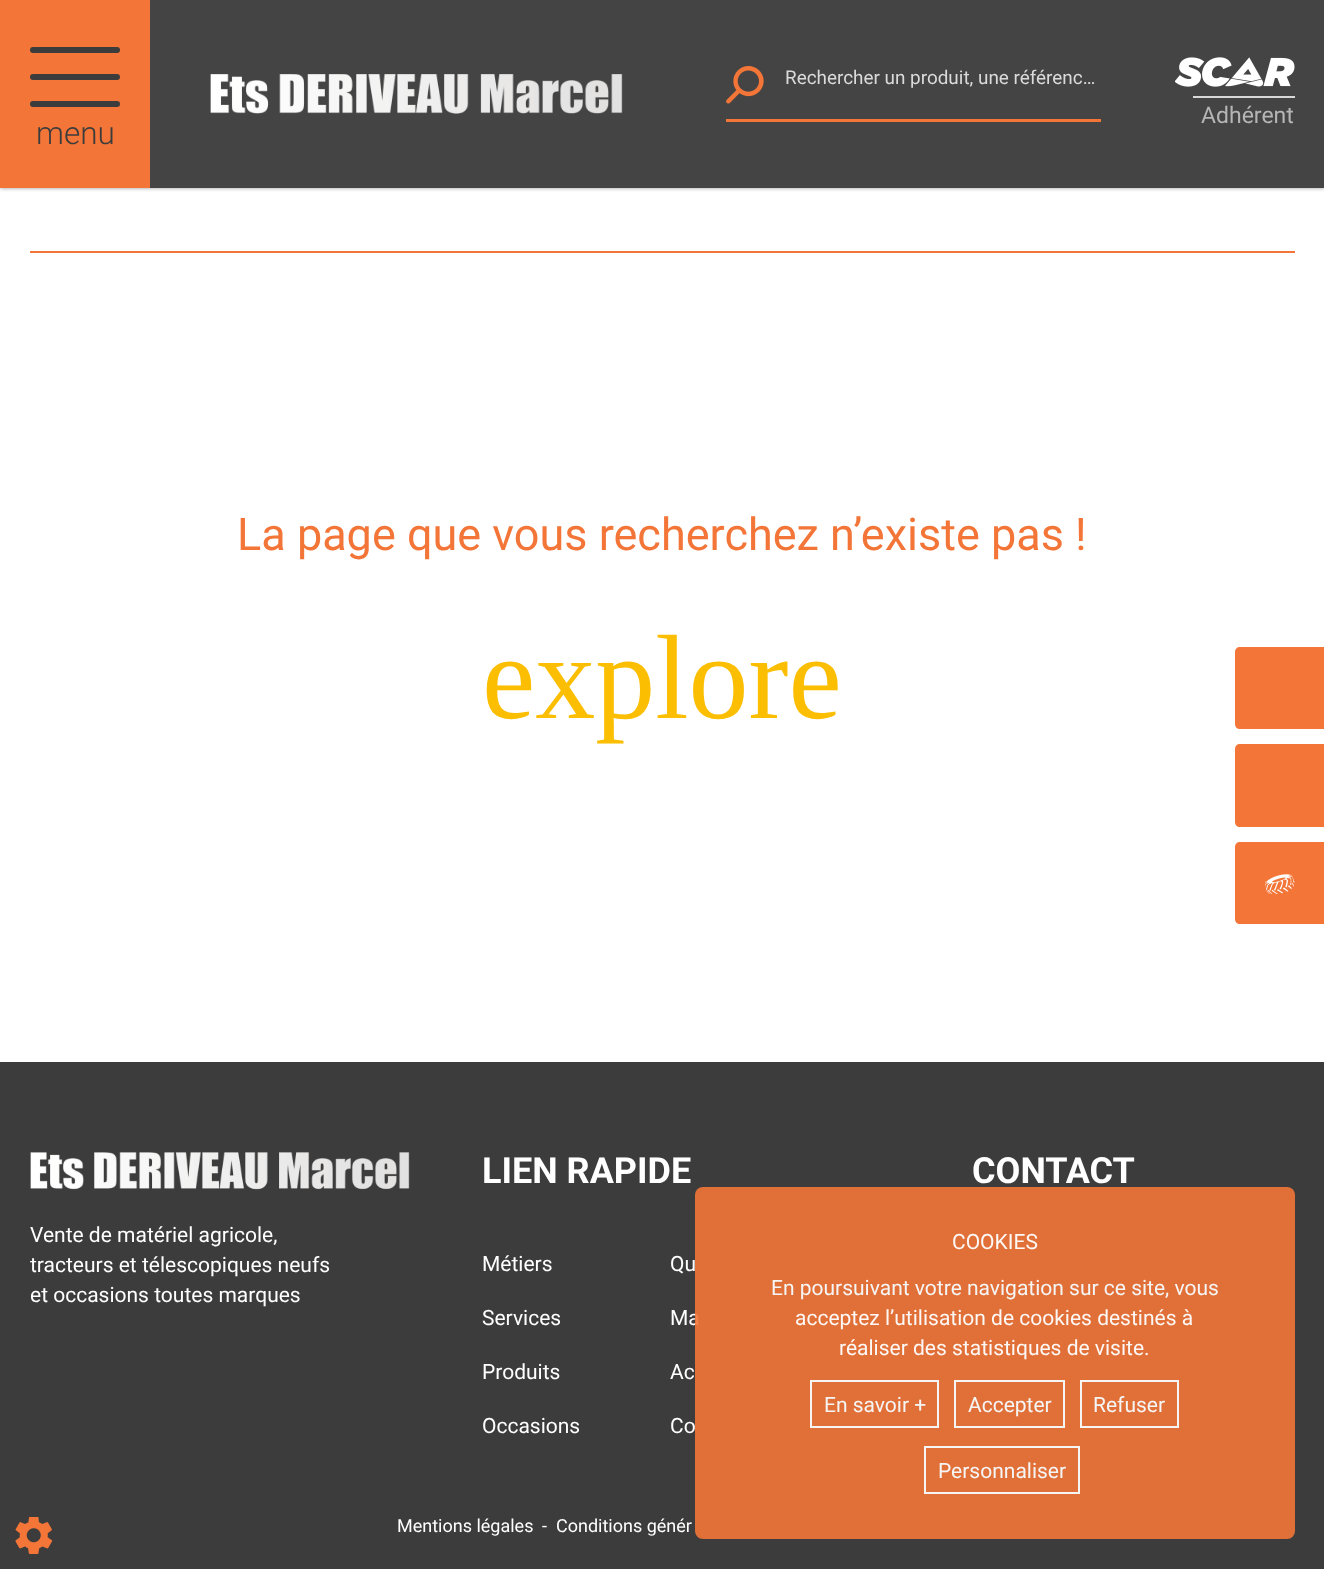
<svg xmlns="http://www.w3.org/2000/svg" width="1324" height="1569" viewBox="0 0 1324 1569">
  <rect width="100%" height="100%" fill="rgb(255,255,255)"/>
  <rect x="0" y="0" width="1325" height="188" fill="rgba(0,0,0,0.4)" filter="blur(2px)"/>
  <rect x="150" y="0" width="1174" height="188" fill="rgb(69,68,68)"/>
  <image x="210" y="74" width="413" height="40" href="pic1.png"/>
  <rect x="726" y="119" width="375" height="3" fill="rgb(243,117,55)"/>
  <image x="726" y="66" width="38" height="38" href="pic2.png"/>
  <text x="785" y="84" font-family="Roboto" font-size="18.9" fill="rgb(218,218,218)">Rechercher un produit, une référenc…</text>
  <image x="1175" y="57" width="120" height="30" href="pic3.png"/>
  <rect x="1193" y="96" width="102" height="2" fill="rgb(216,216,216)"/>
  <text x="1201" y="123" font-family="Roboto" font-size="23" fill="rgb(181,181,181)">Adhérent</text>
  <rect x="0" y="0" width="150" height="188" fill="rgb(243,117,55)"/>
  <rect x="30" y="47" width="90" height="6" rx="3" fill="rgb(60,60,60)"/>
  <rect x="30" y="74" width="90" height="6" rx="3" fill="rgb(60,60,60)"/>
  <rect x="30" y="101" width="90" height="6" rx="3" fill="rgb(60,60,60)"/>
  <text x="36" y="144" font-family="Roboto" font-size="31.5" font-weight="300" fill="rgb(60,60,60)">menu</text>
  <rect x="30" y="251" width="1265" height="2" fill="rgb(243,117,55)"/>
  <text x="237" y="550" font-family="Roboto" font-size="45" fill="rgb(243,117,55)">La page que vous recherchez n’existe pas !</text>
  <text x="482" y="718" font-family="Liberation Serif" font-size="120" fill="rgb(251,190,0)">explore</text>
  <path d="M1240 647H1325V729H1240C1237 729 1235 727 1235 724V652C1235 649 1237 647 1240 647Z" fill="rgb(243,117,55)"/>
  <path d="M1240 744H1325V827H1240C1237 827 1235 825 1235 822V749C1235 746 1237 744 1240 744Z" fill="rgb(243,117,55)"/>
  <path d="M1240 842H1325V924H1240C1237 924 1235 922 1235 919V847C1235 844 1237 842 1240 842Z" fill="rgb(243,117,55)"/>
  <image x="1265" y="874" width="30" height="20" href="pic4.png"/>
  <rect x="0" y="1062" width="1324" height="507" fill="rgb(60,60,60)"/>
  <text x="482" y="1183" font-family="Roboto" font-size="36" font-weight="bold" fill="rgb(255,255,255)">LIEN RAPIDE</text>
  <g font-family="Roboto" font-size="21" fill="rgb(255,255,255)">
    <text x="482" y="1271">Métiers</text>
    <text x="482" y="1325">Services</text>
    <text x="482" y="1379">Produits</text>
    <text x="482" y="1433">Occasions</text>
    <text x="670" y="1271">Qu</text>
    <text x="670" y="1325">Ma</text>
    <text x="670" y="1379">Ac</text>
    <text x="670" y="1433">Co</text>
  </g>
  <text x="972" y="1183" font-family="Roboto" font-size="36" font-weight="bold" fill="rgb(255,255,255)">CONTACT</text>
  <image x="30" y="1152" width="380" height="38" href="pic5.png"/>
  <g font-family="Roboto" font-size="21" fill="rgb(255,255,255)">
    <text>
      <tspan x="30" y="1242">Vente de matériel agricole,</tspan>
      <tspan x="30" y="1272">tracteurs et télescopiques neufs</tspan>
      <tspan x="30" y="1302">et occasions toutes marques</tspan>
    </text>
  </g>
  <g font-family="Roboto" font-size="18" fill="rgb(255,255,255)">
    <text x="397" y="1532">Mentions légales</text>
    <text x="542" y="1532">-</text>
    <text x="556" y="1532">Conditions génér</text>
  </g>
  <rect x="695" y="1187" width="600" height="352" rx="8" fill="rgba(243,117,55,0.9)"/>
  <text x="952" y="1249" font-family="Roboto" font-size="21" fill="rgb(253,248,245)">COOKIES</text>
  <text x="771" y="1295" font-family="Roboto" font-size="21" fill="rgb(245,245,245)">En poursuivant votre navigation sur ce site, vous</text>
  <g font-family="Roboto" font-size="21" fill="rgb(253,248,245)">
    <text x="795" y="1325">acceptez l’utilisation de cookies destinés à</text>
    <text x="839" y="1355">réaliser des statistiques de visite.</text>
  </g>
  <rect x="811" y="1381" width="127" height="46" fill="none" stroke="rgb(245,245,245)" stroke-width="2"/>
  <text x="824" y="1412" font-family="Roboto" font-size="21" fill="rgb(245,245,245)">En savoir +</text>
  <rect x="955" y="1381" width="109" height="46" fill="none" stroke="rgb(245,245,245)" stroke-width="2"/>
  <text x="968" y="1412" font-family="Roboto" font-size="21" fill="rgb(245,245,245)">Accepter</text>
  <rect x="1081" y="1381" width="97" height="46" fill="none" stroke="rgb(245,245,245)" stroke-width="2"/>
  <text x="1093" y="1412" font-family="Roboto" font-size="21" fill="rgb(245,245,245)">Refuser</text>
  <rect x="925" y="1447" width="154" height="46" fill="none" stroke="rgb(245,245,245)" stroke-width="2"/>
  <text x="938" y="1478" font-family="Roboto" font-size="21" fill="rgb(245,245,245)">Personnaliser</text>
  <image x="15" y="1517" width="38" height="37" href="pic6.png"/>
</svg>
